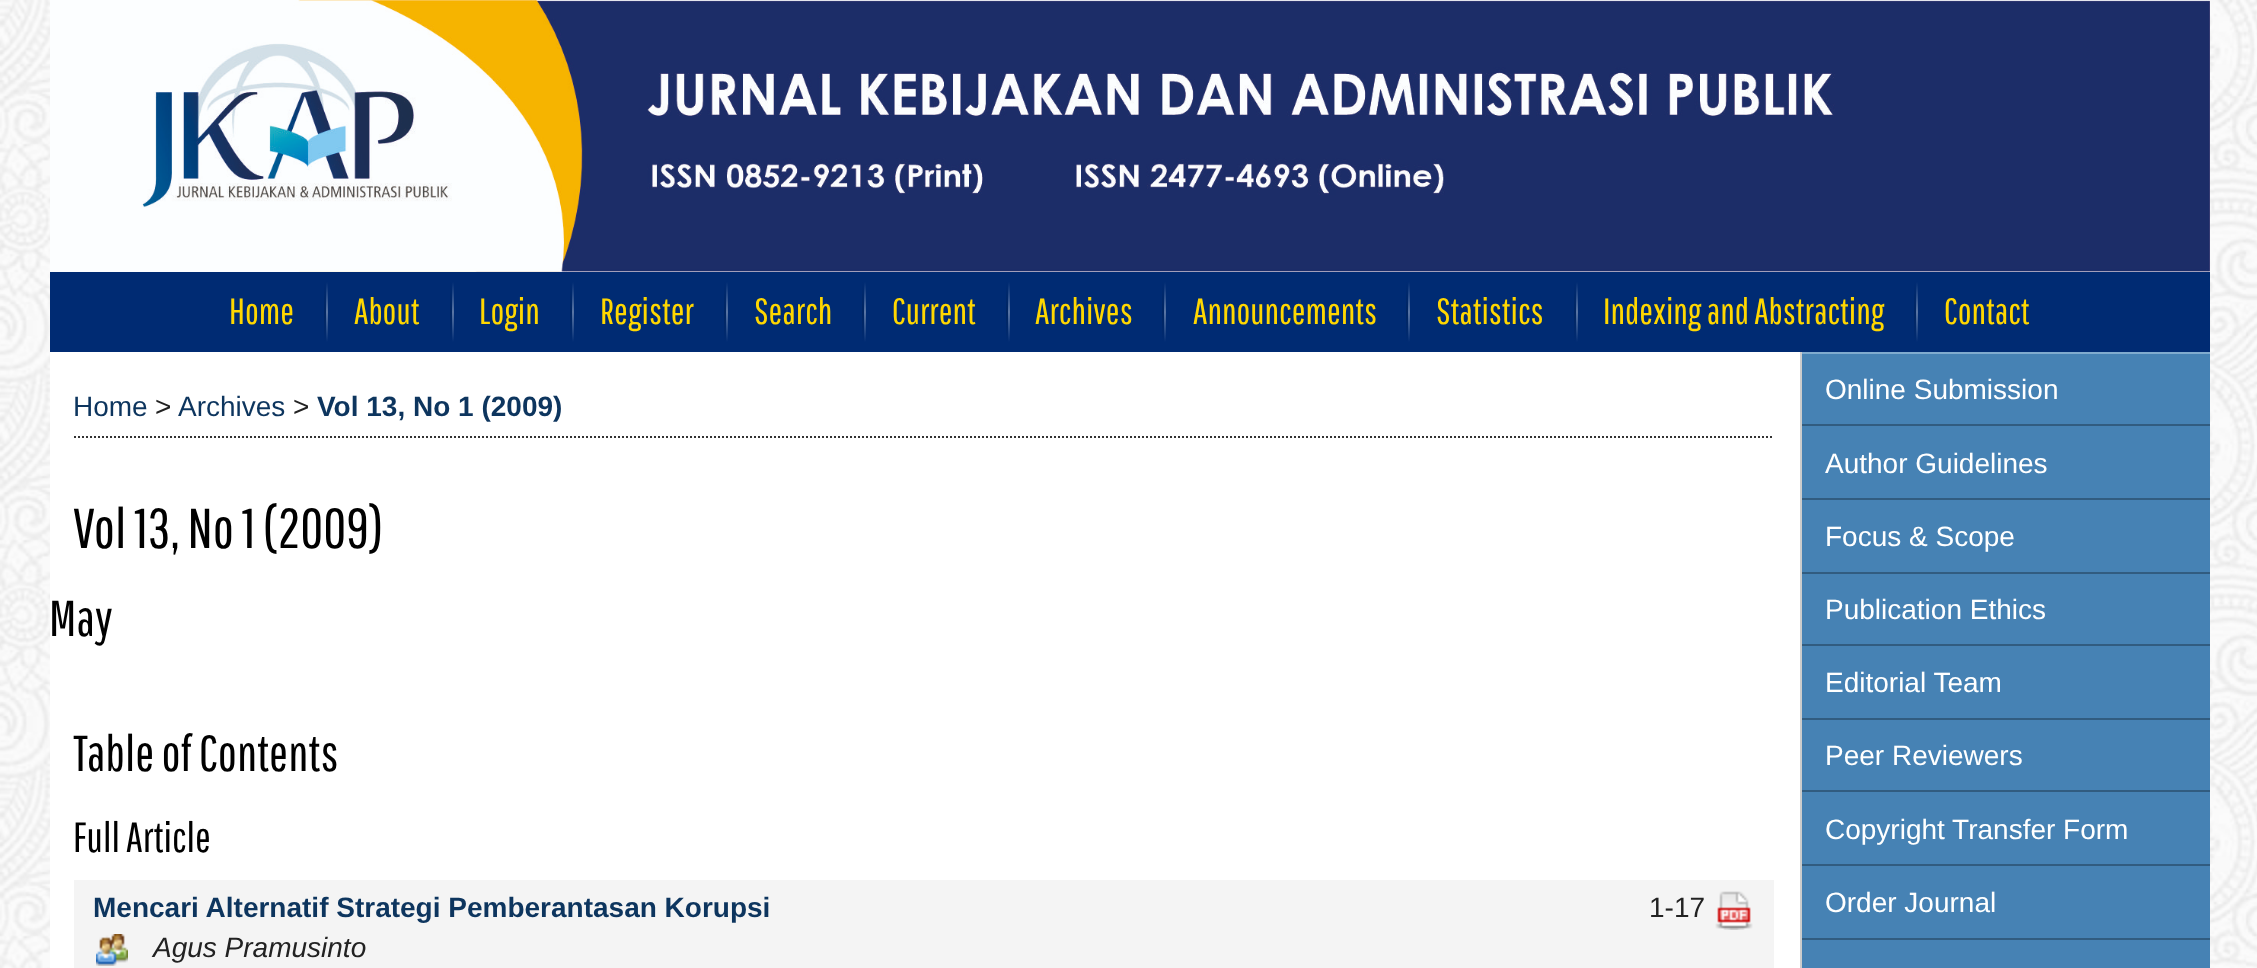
<svg xmlns="http://www.w3.org/2000/svg" width="2257" height="968" viewBox="0 0 2257 968">
  <defs>
    <linearGradient id="g1" gradientUnits="userSpaceOnUse" x1="325" y1="282" x2="325" y2="342"><stop offset="0" stop-color="rgb(0,43,115)"/><stop offset="0.5" stop-color="rgb(0,37,98)"/><stop offset="1" stop-color="rgb(0,43,115)"/></linearGradient>
    <linearGradient id="g2" gradientUnits="userSpaceOnUse" x1="327" y1="282" x2="327" y2="342"><stop offset="0" stop-color="rgb(0,43,115)"/><stop offset="0.5" stop-color="rgb(89,117,164)"/><stop offset="1" stop-color="rgb(0,43,115)"/></linearGradient>
    <linearGradient id="g3" gradientUnits="userSpaceOnUse" x1="451" y1="282" x2="451" y2="342"><stop offset="0" stop-color="rgb(0,43,115)"/><stop offset="0.5" stop-color="rgb(0,37,98)"/><stop offset="1" stop-color="rgb(0,43,115)"/></linearGradient>
    <linearGradient id="g4" gradientUnits="userSpaceOnUse" x1="453" y1="282" x2="453" y2="342"><stop offset="0" stop-color="rgb(0,43,115)"/><stop offset="0.5" stop-color="rgb(89,117,164)"/><stop offset="1" stop-color="rgb(0,43,115)"/></linearGradient>
    <linearGradient id="g5" gradientUnits="userSpaceOnUse" x1="571" y1="282" x2="571" y2="342"><stop offset="0" stop-color="rgb(0,43,115)"/><stop offset="0.5" stop-color="rgb(0,37,98)"/><stop offset="1" stop-color="rgb(0,43,115)"/></linearGradient>
    <linearGradient id="g6" gradientUnits="userSpaceOnUse" x1="573" y1="282" x2="573" y2="342"><stop offset="0" stop-color="rgb(0,43,115)"/><stop offset="0.5" stop-color="rgb(89,117,164)"/><stop offset="1" stop-color="rgb(0,43,115)"/></linearGradient>
    <linearGradient id="g7" gradientUnits="userSpaceOnUse" x1="725" y1="282" x2="725" y2="342"><stop offset="0" stop-color="rgb(0,43,115)"/><stop offset="0.5" stop-color="rgb(0,37,98)"/><stop offset="1" stop-color="rgb(0,43,115)"/></linearGradient>
    <linearGradient id="g8" gradientUnits="userSpaceOnUse" x1="727" y1="282" x2="727" y2="342"><stop offset="0" stop-color="rgb(0,43,115)"/><stop offset="0.5" stop-color="rgb(89,117,164)"/><stop offset="1" stop-color="rgb(0,43,115)"/></linearGradient>
    <linearGradient id="g9" gradientUnits="userSpaceOnUse" x1="863" y1="282" x2="863" y2="342"><stop offset="0" stop-color="rgb(0,43,115)"/><stop offset="0.5" stop-color="rgb(0,37,98)"/><stop offset="1" stop-color="rgb(0,43,115)"/></linearGradient>
    <linearGradient id="g10" gradientUnits="userSpaceOnUse" x1="865" y1="282" x2="865" y2="342"><stop offset="0" stop-color="rgb(0,43,115)"/><stop offset="0.5" stop-color="rgb(89,117,164)"/><stop offset="1" stop-color="rgb(0,43,115)"/></linearGradient>
    <linearGradient id="g11" gradientUnits="userSpaceOnUse" x1="1007" y1="282" x2="1007" y2="342"><stop offset="0" stop-color="rgb(0,43,115)"/><stop offset="0.5" stop-color="rgb(0,37,98)"/><stop offset="1" stop-color="rgb(0,43,115)"/></linearGradient>
    <linearGradient id="g12" gradientUnits="userSpaceOnUse" x1="1009" y1="282" x2="1009" y2="342"><stop offset="0" stop-color="rgb(0,43,115)"/><stop offset="0.5" stop-color="rgb(89,117,164)"/><stop offset="1" stop-color="rgb(0,43,115)"/></linearGradient>
    <linearGradient id="g13" gradientUnits="userSpaceOnUse" x1="1163" y1="282" x2="1163" y2="342"><stop offset="0" stop-color="rgb(0,43,115)"/><stop offset="0.5" stop-color="rgb(0,37,98)"/><stop offset="1" stop-color="rgb(0,43,115)"/></linearGradient>
    <linearGradient id="g14" gradientUnits="userSpaceOnUse" x1="1165" y1="282" x2="1165" y2="342"><stop offset="0" stop-color="rgb(0,43,115)"/><stop offset="0.5" stop-color="rgb(89,117,164)"/><stop offset="1" stop-color="rgb(0,43,115)"/></linearGradient>
    <linearGradient id="g15" gradientUnits="userSpaceOnUse" x1="1407" y1="282" x2="1407" y2="342"><stop offset="0" stop-color="rgb(0,43,115)"/><stop offset="0.5" stop-color="rgb(0,37,98)"/><stop offset="1" stop-color="rgb(0,43,115)"/></linearGradient>
    <linearGradient id="g16" gradientUnits="userSpaceOnUse" x1="1409" y1="282" x2="1409" y2="342"><stop offset="0" stop-color="rgb(0,43,115)"/><stop offset="0.5" stop-color="rgb(89,117,164)"/><stop offset="1" stop-color="rgb(0,43,115)"/></linearGradient>
    <linearGradient id="g17" gradientUnits="userSpaceOnUse" x1="1575" y1="282" x2="1575" y2="342"><stop offset="0" stop-color="rgb(0,43,115)"/><stop offset="0.5" stop-color="rgb(0,37,98)"/><stop offset="1" stop-color="rgb(0,43,115)"/></linearGradient>
    <linearGradient id="g18" gradientUnits="userSpaceOnUse" x1="1577" y1="282" x2="1577" y2="342"><stop offset="0" stop-color="rgb(0,43,115)"/><stop offset="0.5" stop-color="rgb(89,117,164)"/><stop offset="1" stop-color="rgb(0,43,115)"/></linearGradient>
    <linearGradient id="g19" gradientUnits="userSpaceOnUse" x1="1915" y1="282" x2="1915" y2="342"><stop offset="0" stop-color="rgb(0,43,115)"/><stop offset="0.5" stop-color="rgb(0,37,98)"/><stop offset="1" stop-color="rgb(0,43,115)"/></linearGradient>
    <linearGradient id="g20" gradientUnits="userSpaceOnUse" x1="1917" y1="282" x2="1917" y2="342"><stop offset="0" stop-color="rgb(0,43,115)"/><stop offset="0.5" stop-color="rgb(89,117,164)"/><stop offset="1" stop-color="rgb(0,43,115)"/></linearGradient>
  </defs>
  <rect width="100%" height="100%" fill="rgb(255,255,255)"/>
  <image x="0" y="0" width="2257" height="968" href="pic1.png"/>
  <image x="50" y="0" width="2160" height="272" href="pic2.png"/>
  <rect x="50" y="352" width="1750" height="616" fill="rgb(255,255,255)"/>
  <rect x="50" y="272" width="2160" height="80" fill="rgb(0,43,115)"/>
  <text x="229" y="324" font-family="Pathway Gothic One" font-size="36.5" fill="rgb(255,215,0)">Home</text>
  <rect x="324" y="282" width="2" height="60" fill="url(#g1)"/>
  <rect x="326" y="282" width="2" height="60" fill="url(#g2)"/>
  <text x="354" y="324" font-family="Pathway Gothic One" font-size="36.5" fill="rgb(255,215,0)">About</text>
  <rect x="450" y="282" width="2" height="60" fill="url(#g3)"/>
  <rect x="452" y="282" width="2" height="60" fill="url(#g4)"/>
  <text x="479" y="324" font-family="Pathway Gothic One" font-size="36.5" fill="rgb(255,215,0)">Login</text>
  <rect x="570" y="282" width="2" height="60" fill="url(#g5)"/>
  <rect x="572" y="282" width="2" height="60" fill="url(#g6)"/>
  <text x="600" y="324" font-family="Pathway Gothic One" font-size="36.5" fill="rgb(255,215,0)">Register</text>
  <rect x="724" y="282" width="2" height="60" fill="url(#g7)"/>
  <rect x="726" y="282" width="2" height="60" fill="url(#g8)"/>
  <text x="754" y="324" font-family="Pathway Gothic One" font-size="36.5" fill="rgb(255,215,0)">Search</text>
  <rect x="862" y="282" width="2" height="60" fill="url(#g9)"/>
  <rect x="864" y="282" width="2" height="60" fill="url(#g10)"/>
  <text x="892" y="324" font-family="Pathway Gothic One" font-size="36.5" fill="rgb(255,215,0)">Current</text>
  <rect x="1006" y="282" width="2" height="60" fill="url(#g11)"/>
  <rect x="1008" y="282" width="2" height="60" fill="url(#g12)"/>
  <text x="1035" y="324" font-family="Pathway Gothic One" font-size="36.5" fill="rgb(255,215,0)">Archives</text>
  <rect x="1162" y="282" width="2" height="60" fill="url(#g13)"/>
  <rect x="1164" y="282" width="2" height="60" fill="url(#g14)"/>
  <text x="1193" y="324" font-family="Pathway Gothic One" font-size="36.5" fill="rgb(255,215,0)">Announcements</text>
  <rect x="1406" y="282" width="2" height="60" fill="url(#g15)"/>
  <rect x="1408" y="282" width="2" height="60" fill="url(#g16)"/>
  <text x="1436" y="324" font-family="Pathway Gothic One" font-size="36.5" fill="rgb(255,215,0)">Statistics</text>
  <rect x="1574" y="282" width="2" height="60" fill="url(#g17)"/>
  <rect x="1576" y="282" width="2" height="60" fill="url(#g18)"/>
  <text x="1603" y="324" font-family="Pathway Gothic One" font-size="36.5" fill="rgb(255,215,0)">Indexing and Abstracting</text>
  <rect x="1914" y="282" width="2" height="60" fill="url(#g19)"/>
  <rect x="1916" y="282" width="2" height="60" fill="url(#g20)"/>
  <text x="1944" y="324" font-family="Pathway Gothic One" font-size="36.5" fill="rgb(255,215,0)">Contact</text>
  <path d="M74 437H1774" fill="none" stroke="rgb(51,51,51)" stroke-width="2" stroke-dasharray="2 2"/>
  <text x="73" y="416" font-family="Liberation Sans" font-size="28" fill="rgb(13,53,94)">Home</text>
  <text x="155" y="416" font-family="Liberation Sans" font-size="28" fill="rgb(34,34,34)">&gt;</text>
  <text x="178" y="416" font-family="Liberation Sans" font-size="28" fill="rgb(13,53,94)">Archives</text>
  <text x="293" y="416" font-family="Liberation Sans" font-size="28" fill="rgb(34,34,34)">&gt;</text>
  <text x="317" y="416" font-family="Liberation Sans" font-size="28" font-weight="bold" fill="rgb(13,53,94)">Vol 13, No 1 (2009)</text>
  <text x="73" y="548" font-family="Pathway Gothic One" font-size="56" fill="rgb(0,0,0)">Vol 13, No 1 (2009)</text>
  <g font-family="Pathway Gothic One" font-size="50.5" fill="rgb(0,0,0)">
    <text x="49" y="636">May</text>
    <text x="73" y="771">Table of Contents</text>
  </g>
  <text x="73" y="852" font-family="Pathway Gothic One" font-size="42" fill="rgb(0,0,0)">Full Article</text>
  <rect x="74" y="880" width="1700" height="88" fill="rgb(244,244,244)"/>
  <text x="93" y="917" font-family="Liberation Sans" font-size="28" font-weight="bold" fill="rgb(13,53,94)">Mencari Alternatif Strategi Pemberantasan Korupsi</text>
  <image x="96" y="934" width="32" height="32" href="pic3.png"/>
  <text x="153" y="957" font-family="Liberation Sans" font-size="28" font-style="italic" fill="rgb(34,34,34)">Agus Pramusinto</text>
  <text x="1649" y="917" font-family="Liberation Sans" font-size="28" fill="rgb(34,34,34)">1-17</text>
  <image x="1715" y="891" width="38" height="39" href="pic4.png"/>
  <rect x="1800" y="352" width="2" height="616" fill="rgb(204,204,204)"/>
  <rect x="1802" y="354" width="408" height="70" fill="rgb(70,130,180)"/>
  <rect x="1802" y="352" width="408" height="2" fill="rgb(128,171,206)"/>
  <rect x="1802" y="424" width="408" height="2" fill="rgb(49,92,128)"/>
  <text x="1825" y="399" font-family="Liberation Sans" font-size="28" fill="rgb(255,255,255)">Online Submission</text>
  <rect x="1802" y="426" width="408" height="72" fill="rgb(70,130,180)"/>
  <rect x="1802" y="498" width="408" height="2" fill="rgb(49,92,128)"/>
  <text x="1825" y="473" font-family="Liberation Sans" font-size="28" fill="rgb(255,255,255)">Author Guidelines</text>
  <rect x="1802" y="500" width="408" height="72" fill="rgb(70,130,180)"/>
  <rect x="1802" y="572" width="408" height="2" fill="rgb(49,92,128)"/>
  <text x="1825" y="546" font-family="Liberation Sans" font-size="28" fill="rgb(255,255,255)">Focus &amp; Scope</text>
  <rect x="1802" y="574" width="408" height="70" fill="rgb(70,130,180)"/>
  <rect x="1802" y="644" width="408" height="2" fill="rgb(49,92,128)"/>
  <text x="1825" y="619" font-family="Liberation Sans" font-size="28" fill="rgb(255,255,255)">Publication Ethics</text>
  <rect x="1802" y="646" width="408" height="72" fill="rgb(70,130,180)"/>
  <rect x="1802" y="718" width="408" height="2" fill="rgb(49,92,128)"/>
  <text x="1825" y="692" font-family="Liberation Sans" font-size="28" fill="rgb(255,255,255)">Editorial Team</text>
  <rect x="1802" y="720" width="408" height="70" fill="rgb(70,130,180)"/>
  <rect x="1802" y="790" width="408" height="2" fill="rgb(49,92,128)"/>
  <text x="1825" y="765" font-family="Liberation Sans" font-size="28" fill="rgb(255,255,255)">Peer Reviewers</text>
  <rect x="1802" y="792" width="408" height="72" fill="rgb(70,130,180)"/>
  <rect x="1802" y="864" width="408" height="2" fill="rgb(49,92,128)"/>
  <text x="1825" y="839" font-family="Liberation Sans" font-size="28" fill="rgb(255,255,255)">Copyright Transfer Form</text>
  <rect x="1802" y="866" width="408" height="72" fill="rgb(70,130,180)"/>
  <rect x="1802" y="938" width="408" height="2" fill="rgb(49,92,128)"/>
  <text x="1825" y="912" font-family="Liberation Sans" font-size="28" fill="rgb(255,255,255)">Order Journal</text>
  <rect x="1802" y="940" width="408" height="28" fill="rgb(70,130,180)"/>
</svg>
